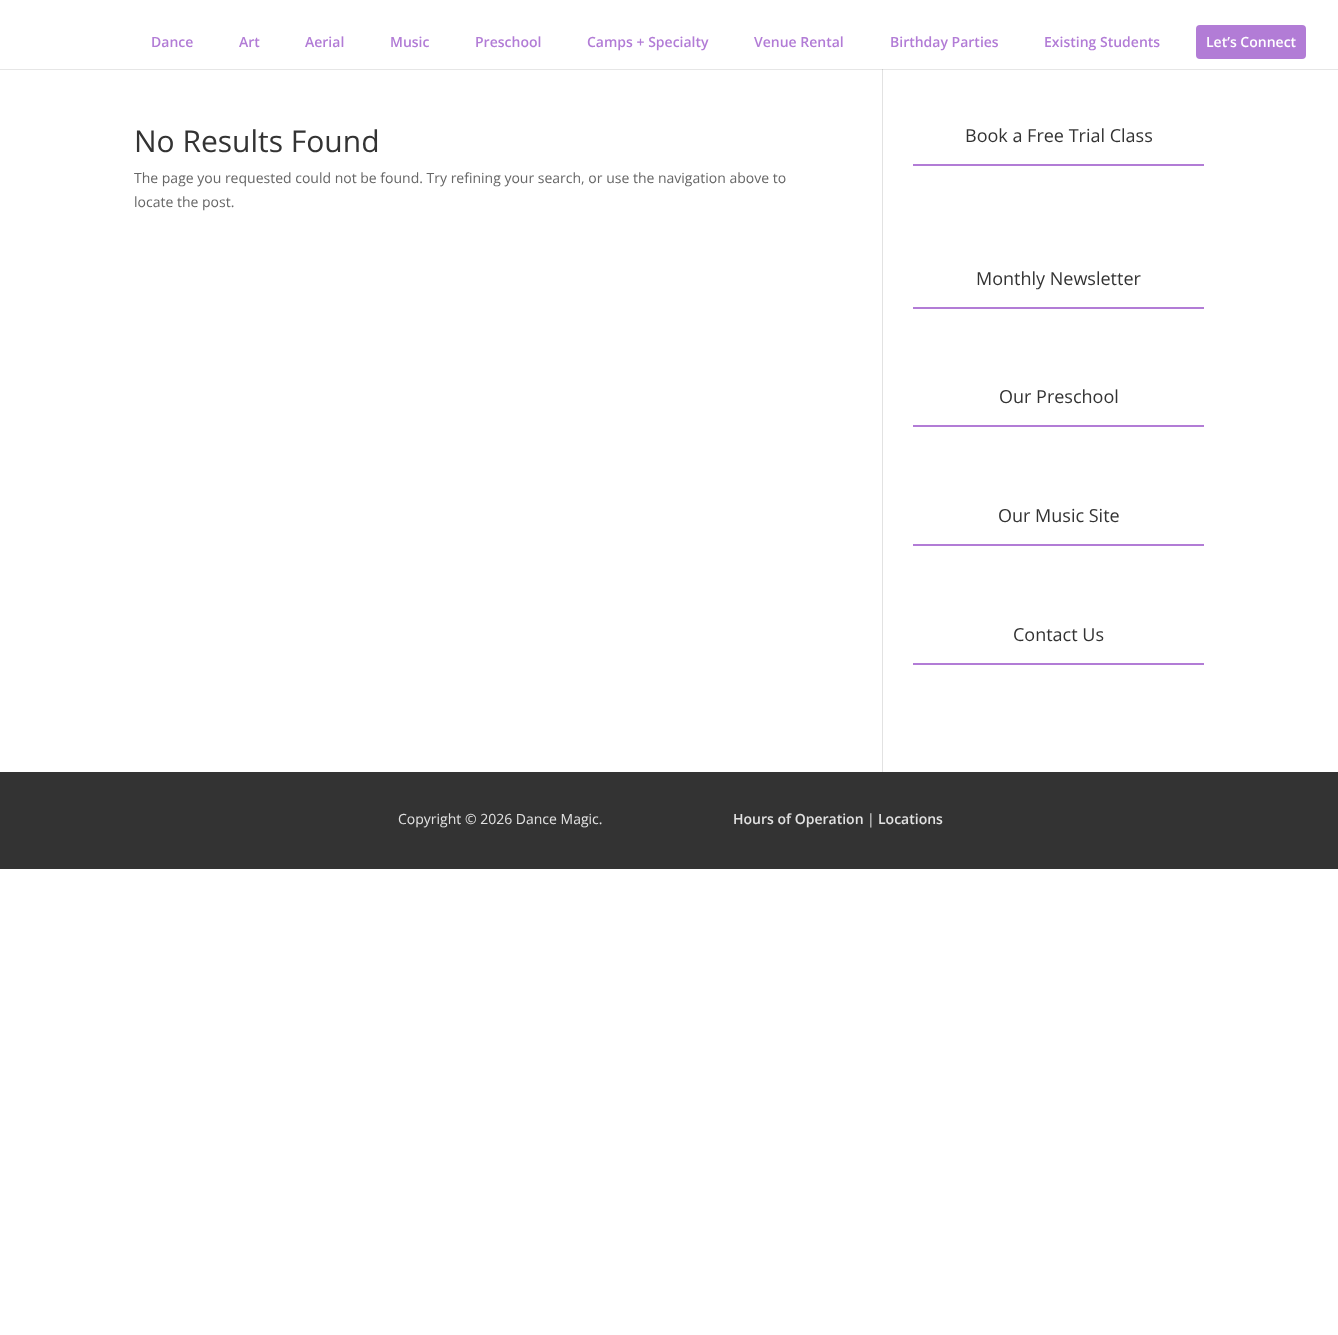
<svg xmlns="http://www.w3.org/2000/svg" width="1338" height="1335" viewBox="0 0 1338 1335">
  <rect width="100%" height="100%" fill="rgb(255,255,255)"/>
  <rect x="0" y="69" width="1338" height="1" fill="rgb(230,230,230)"/>
  <rect x="882" y="68" width="1" height="704" fill="rgb(226,226,226)"/>
  <rect x="882" y="68" width="1" height="1" fill="rgb(255,255,255)"/>
  <g font-family="Open Sans" font-size="14" font-weight="600" fill="rgb(178,124,214)">
    <text x="151" y="47">Dance</text>
    <text x="239" y="47">Art</text>
    <text x="305" y="47">Aerial</text>
    <text x="390" y="47">Music</text>
    <text x="475" y="47">Preschool</text>
    <text x="587" y="47">Camps + Specialty</text>
    <text x="754" y="47">Venue Rental</text>
    <text x="890" y="47">Birthday Parties</text>
    <text x="1044" y="47">Existing Students</text>
  </g>
  <rect x="1196" y="25" width="110" height="34" rx="4" fill="rgb(178,124,214)"/>
  <text x="1206" y="47" font-family="Open Sans" font-size="14" font-weight="600" fill="rgb(255,255,255)">Let’s Connect</text>
  <rect x="882" y="69" width="1" height="1" fill="rgb(203,203,203)"/>
  <text x="134" y="152" font-family="Open Sans" font-size="30" fill="rgb(51,51,51)">No Results Found</text>
  <g font-family="Open Sans" font-size="14" fill="rgb(102,102,102)">
    <text>
      <tspan x="134" y="183">The page you requested could not be found. Try refining your search, or use the navigation above to</tspan>
      <tspan x="134" y="207">locate the post.</tspan>
    </text>
  </g>
  <rect x="913" y="164" width="291" height="2" fill="rgb(178,124,214)"/>
  <text x="965" y="142" font-family="Open Sans" font-size="18" fill="rgb(51,51,51)">Book a Free Trial Class</text>
  <rect x="913" y="307" width="291" height="2" fill="rgb(178,124,214)"/>
  <text x="976" y="285" font-family="Open Sans" font-size="18" fill="rgb(51,51,51)">Monthly Newsletter</text>
  <rect x="913" y="425" width="291" height="2" fill="rgb(178,124,214)"/>
  <text x="999" y="403" font-family="Open Sans" font-size="18" fill="rgb(51,51,51)">Our Preschool</text>
  <rect x="913" y="544" width="291" height="2" fill="rgb(178,124,214)"/>
  <text x="998" y="522" font-family="Open Sans" font-size="18" fill="rgb(51,51,51)">Our Music Site</text>
  <rect x="913" y="663" width="291" height="2" fill="rgb(178,124,214)"/>
  <text x="1013" y="641" font-family="Open Sans" font-size="18" fill="rgb(51,51,51)">Contact Us</text>
  <rect x="0" y="772" width="1338" height="97" fill="rgb(51,51,51)"/>
  <text x="398" y="824" font-family="Open Sans" font-size="14" fill="rgb(226,226,226)">Copyright © 2026 Dance Magic.</text>
  <text x="733" y="824" font-family="Open Sans" font-size="14" font-weight="600" fill="rgb(226,226,226)">Hours of Operation</text>
  <text x="867" y="824" font-family="Open Sans" font-size="14" fill="rgb(226,226,226)">|</text>
  <text x="878" y="824" font-family="Open Sans" font-size="14" font-weight="600" fill="rgb(226,226,226)">Locations</text>
</svg>
